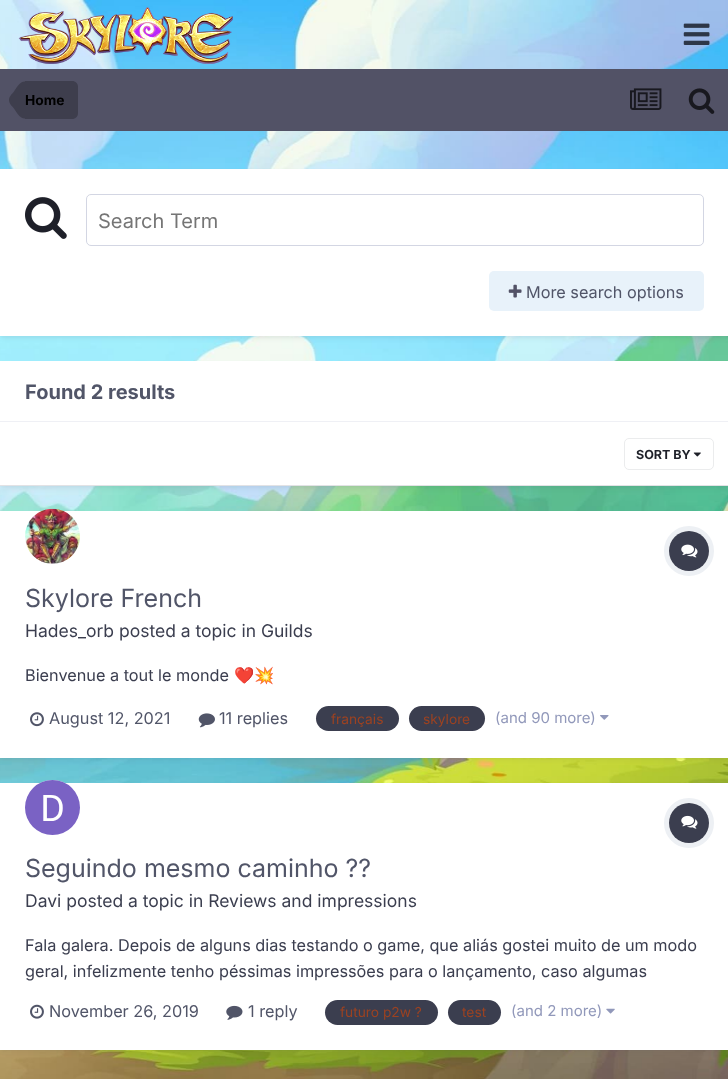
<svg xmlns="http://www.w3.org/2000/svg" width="728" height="1079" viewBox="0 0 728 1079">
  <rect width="100%" height="100%" fill="rgb(255,255,255)"/>
  <image x="0" y="0" width="728" height="1079" href="pic1.png"/>
  <image x="18" y="7" width="215" height="57" href="pic2.png"/>
  <image x="683" y="23" width="27" height="22" href="pic3.png"/>
  <rect x="0" y="69" width="728" height="62" fill="rgb(82,82,102)"/>
  <path d="M25 81H72C75.5 81 78 83.5 78 87V113C78 116.5 75.5 119 72 119H25Z" fill="rgb(62,62,77)"/>
  <path d="M25 100V118.5C19.5 118.5 16.5 112 14 108.5C12 106 9 103.5 9 100ZM25 100H9C9 96.5 12 94 14 91.5C16.5 88 19.5 81.5 25 81.5Z" fill="rgb(62,62,77)"/>
  <text x="25" y="105" font-family="Inter" font-size="13.75" font-weight="bold" fill="rgb(0,0,0)">Home</text>
  <image x="630" y="88" width="32" height="22" href="pic4.png"/>
  <image x="688" y="88" width="27" height="26" href="pic5.png"/>
  <rect x="1" y="173" width="727" height="165" fill="rgba(59,62,79,0.1)" filter="blur(2.5px)"/>
  <rect x="0" y="169" width="728" height="167" fill="rgb(255,255,255)"/>
  <image x="25" y="197" width="42" height="42" href="pic6.png"/>
  <rect x="86.5" y="194.5" width="617" height="51" rx="4.5" fill="none" stroke="rgb(211,214,227)"/>
  <text x="98" y="228" font-family="Inter" font-size="20" fill="rgb(117,117,117)">Search Term</text>
  <rect x="489" y="271" width="215" height="40" rx="5" fill="rgb(232,242,250)"/>
  <image x="508" y="284" width="14" height="14" href="pic7.png"/>
  <text x="526" y="298" font-family="Inter" font-size="16.25" fill="rgb(81,85,104)">More search options</text>
  <rect x="1" y="365" width="727" height="123" fill="rgba(59,62,79,0.1)" filter="blur(2.5px)"/>
  <rect x="0" y="361" width="728" height="124" fill="rgb(255,255,255)"/>
  <rect x="0" y="421" width="728" height="1" fill="rgb(239,240,245)"/>
  <text x="25" y="399" font-family="Inter" font-size="20" font-weight="bold" fill="rgb(81,85,104)">Found 2 results</text>
  <rect x="0" y="485" width="728" height="1" fill="rgb(226,226,229)"/>
  <image x="693" y="452" width="8" height="5" href="pic8.png"/>
  <rect x="624.5" y="438.5" width="89" height="31" rx="4.5" fill="none" stroke="rgb(235,236,237)"/>
  <text x="636" y="459" font-family="Inter" font-size="12.5" font-weight="bold" fill="rgb(30,32,41)">SORT BY</text>
  <rect x="1" y="515" width="727" height="244" fill="rgba(59,62,79,0.1)" filter="blur(2.5px)"/>
  <rect x="0" y="511" width="728" height="247" fill="rgb(255,255,255)"/>
  <circle cx="52.5" cy="536.5" r="27.5" fill="rgb(255,255,255)"/>
  <image x="25" y="508" width="55" height="56" href="pic9.png"/>
  <circle cx="689" cy="551" r="22.5" fill="none" stroke="rgb(237,240,244)" stroke-width="5"/>
  <circle cx="689" cy="551" r="20" fill="rgb(59,62,79)"/>
  <image x="681" y="544" width="17" height="14" href="pic10.png"/>
  <text x="25" y="607" font-family="Inter" font-size="25" fill="rgb(81,85,104)">Skylore French</text>
  <text x="25" y="637" font-family="Inter" font-size="17.5" fill="rgb(59,62,79)">Hades_orb posted a topic in Guilds</text>
  <text x="25" y="681" font-family="Inter" font-size="16.25" fill="rgb(59,62,79)">Bienvenue a tout le monde</text>
  <text x="234" y="681" font-family="Noto Color Emoji" font-size="16.25" fill="rgb(59,62,79)">❤️💥</text>
  <image x="30" y="712" width="14" height="15" href="pic11.png"/>
  <text x="49" y="724" font-family="Inter" font-size="16.25" fill="rgb(81,85,104)">August 12, 2021</text>
  <image x="198" y="713" width="17" height="15" href="pic12.png"/>
  <text x="219" y="724" font-family="Inter" font-size="16.25" fill="rgb(81,85,104)">11 replies</text>
  <rect x="316" y="706" width="83" height="25" rx="12.5" fill="rgb(59,62,79)"/>
  <text x="331" y="724" font-family="Inter" font-size="13.75" fill="rgb(156,66,33)">français</text>
  <rect x="409" y="706" width="76" height="25" rx="12.5" fill="rgb(59,62,79)"/>
  <text x="423" y="724" font-family="Inter" font-size="13.75" fill="rgb(156,66,33)">skylore</text>
  <text x="495" y="723" font-family="Inter" font-size="15" fill="rgb(145,152,186)">(and 90 more)</text>
  <image x="600" y="715" width="9" height="5" href="pic13.png"/>
  <rect x="1" y="786" width="727" height="265" fill="rgba(59,62,79,0.1)" filter="blur(2.5px)"/>
  <rect x="0" y="783" width="728" height="267" fill="rgb(255,255,255)"/>
  <circle cx="52.5" cy="807.5" r="27.5" fill="rgb(255,255,255)"/>
  <image x="25" y="780" width="55" height="55" href="pic14.png"/>
  <circle cx="689" cy="823" r="22.5" fill="none" stroke="rgb(237,240,244)" stroke-width="5"/>
  <circle cx="689" cy="823" r="20" fill="rgb(59,62,79)"/>
  <image x="681" y="815" width="17" height="14" href="pic15.png"/>
  <text x="25" y="877" font-family="Inter" font-size="25" fill="rgb(81,85,104)">Seguindo mesmo caminho ??</text>
  <text x="25" y="907" font-family="Inter" font-size="17.5" fill="rgb(59,62,79)">Davi posted a topic in Reviews and impressions</text>
  <g font-family="Inter" font-size="16.25" fill="rgb(59,62,79)">
    <text>
      <tspan x="25" y="951">Fala galera. Depois de alguns dias testando o game, que aliás gostei muito de um modo</tspan>
      <tspan x="25" y="977">geral, infelizmente tenho péssimas impressões para o lançamento, caso algumas</tspan>
    </text>
  </g>
  <image x="30" y="1004" width="14" height="15" href="pic16.png"/>
  <text x="49" y="1017" font-family="Inter" font-size="16.25" fill="rgb(81,85,104)">November 26, 2019</text>
  <image x="226" y="1005" width="17" height="15" href="pic17.png"/>
  <text x="248" y="1017" font-family="Inter" font-size="16.25" fill="rgb(81,85,104)">1 reply</text>
  <rect x="325" y="1000" width="113" height="25" rx="12.5" fill="rgb(59,62,79)"/>
  <text x="340" y="1017" font-family="Inter" font-size="13.75" fill="rgb(156,66,33)">futuro p2w ?</text>
  <rect x="448" y="1000" width="53" height="25" rx="12.5" fill="rgb(59,62,79)"/>
  <text x="462" y="1017" font-family="Inter" font-size="13.75" fill="rgb(156,66,33)">test</text>
  <text x="511" y="1016" font-family="Inter" font-size="15" fill="rgb(145,152,186)">(and 2 more)</text>
  <image x="606" y="1008" width="9" height="6" href="pic18.png"/>
</svg>
